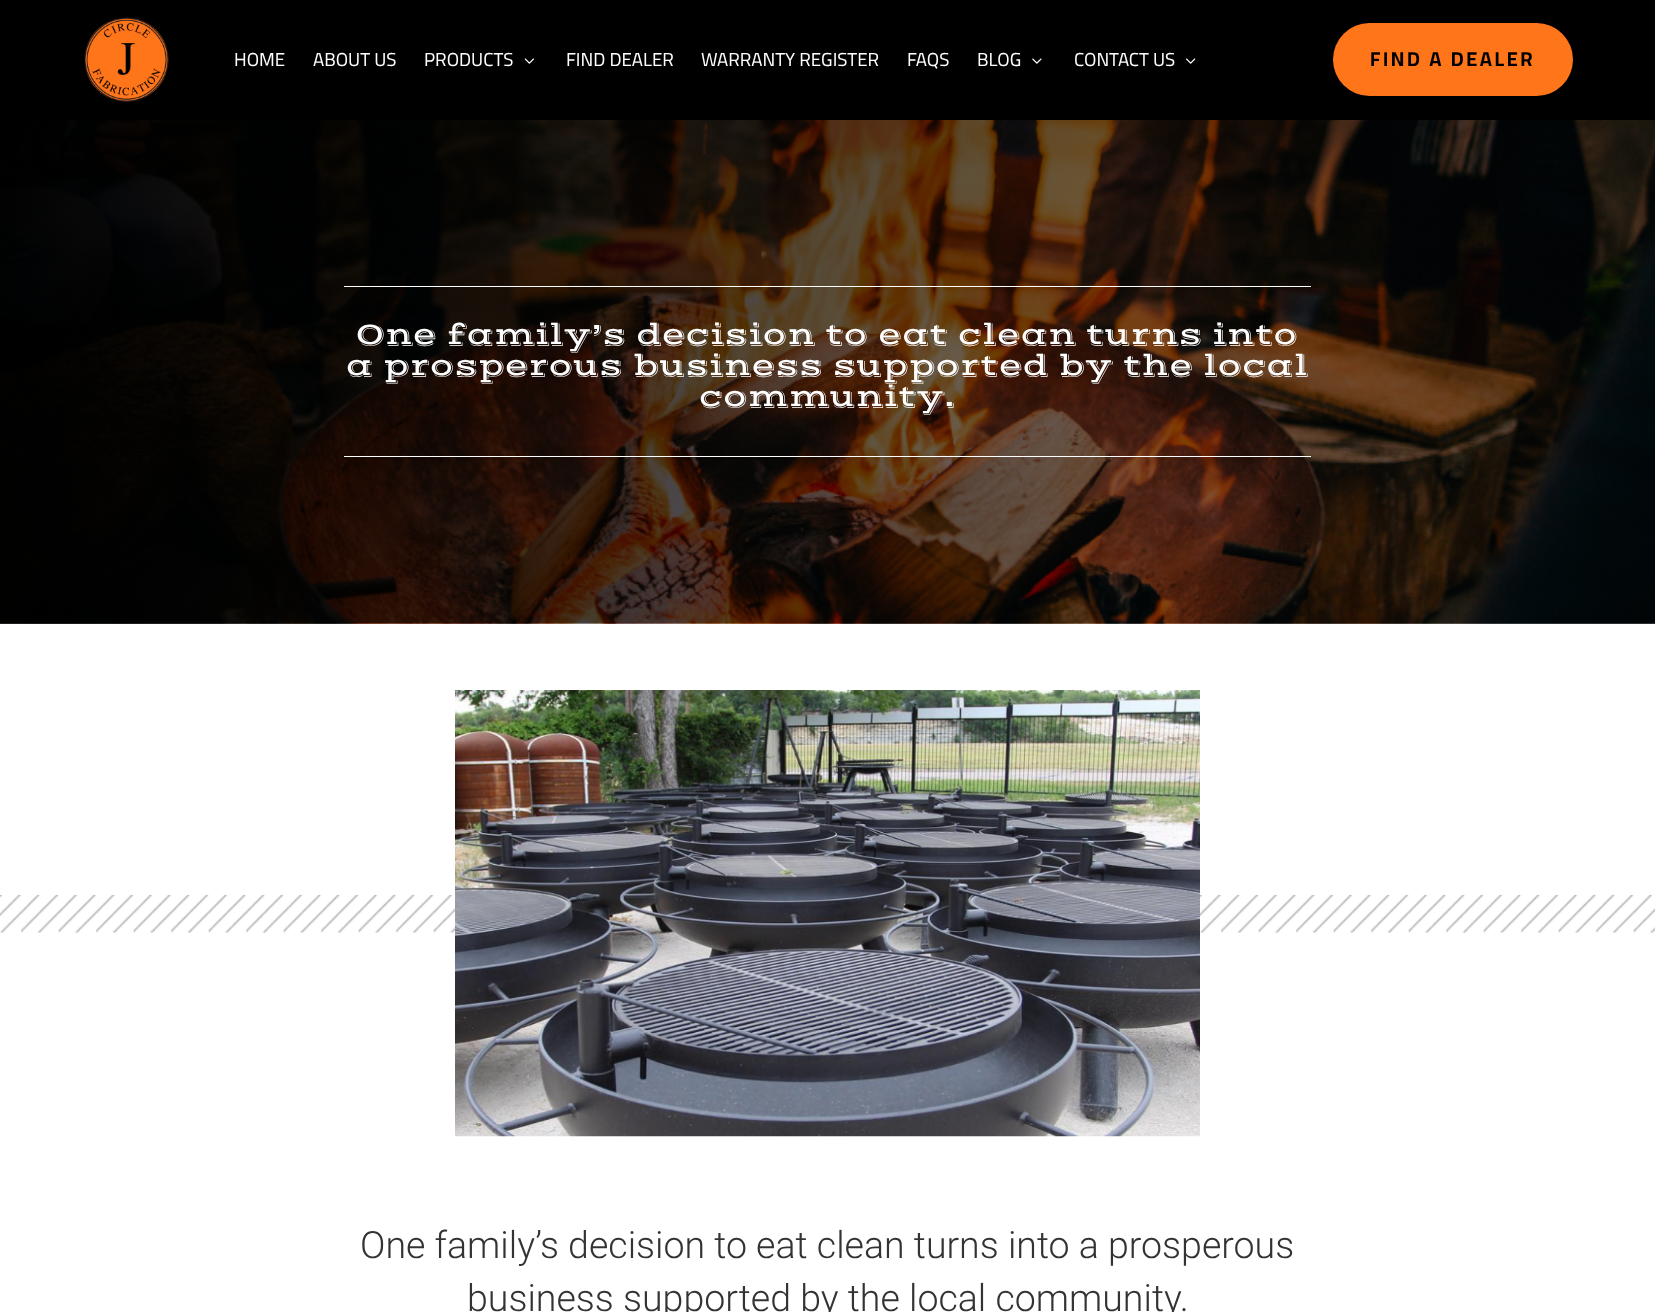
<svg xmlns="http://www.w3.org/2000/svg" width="1655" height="1312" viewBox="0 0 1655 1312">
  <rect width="100%" height="100%" fill="rgb(255,255,255)"/>
  <rect x="0" y="0" width="1655" height="120" fill="rgb(0,0,0)"/>
  <image x="84" y="17" width="85" height="85" href="pic1.png"/>
  <g font-family="Cairo" font-size="18.75" fill="rgb(255,255,255)">
    <text x="234" y="66">HOME</text>
    <text x="313" y="66">ABOUT US</text>
    <text x="424" y="66">PRODUCTS</text>
  </g>
  <image x="524" y="58" width="10" height="6" href="pic2.png"/>
  <g font-family="Cairo" font-size="18.75" fill="rgb(255,255,255)">
    <text x="566" y="66">FIND DEALER</text>
    <text x="701" y="66">WARRANTY REGISTER</text>
    <text x="907" y="66">FAQS</text>
    <text x="977" y="66">BLOG</text>
  </g>
  <image x="1032" y="58" width="10" height="6" href="pic3.png"/>
  <text x="1074" y="66" font-family="Cairo" font-size="18.75" fill="rgb(255,255,255)">CONTACT US</text>
  <image x="1186" y="58" width="10" height="6" href="pic4.png"/>
  <rect x="1333" y="23" width="240" height="73" rx="36.5" fill="rgb(255,117,26)"/>
  <text x="1370" y="66" font-family="Cairo" font-size="20" font-weight="bold" letter-spacing="2.5" fill="rgb(0,0,0)">FIND A DEALER</text>
  <image x="0" y="120" width="1655" height="504" href="pic5.png"/>
  <rect x="344" y="286" width="967" height="1" fill="rgb(255,255,255)"/>
  <rect x="344" y="456" width="967" height="1" fill="rgb(255,255,255)"/>
  <g font-family="Vast Shadow" font-size="31.25" fill="rgb(255,255,255)">
    <text x="356" y="344">One family’s decision to eat clean turns into</text>
    <text x="346" y="375">a prosperous business supported by the local</text>
    <text x="699" y="406">community.</text>
  </g>
  <image x="0" y="895" width="1655" height="38" href="pic6.png"/>
  <image x="455" y="690" width="745" height="447" href="pic7.png"/>
  <g font-family="Roboto" font-size="37.5" font-weight="300" fill="rgb(51,51,51)">
    <text x="360" y="1258">One family’s decision to eat clean turns into a prosperous</text>
    <text x="467" y="1311">business supported by the local community.</text>
  </g>
</svg>
